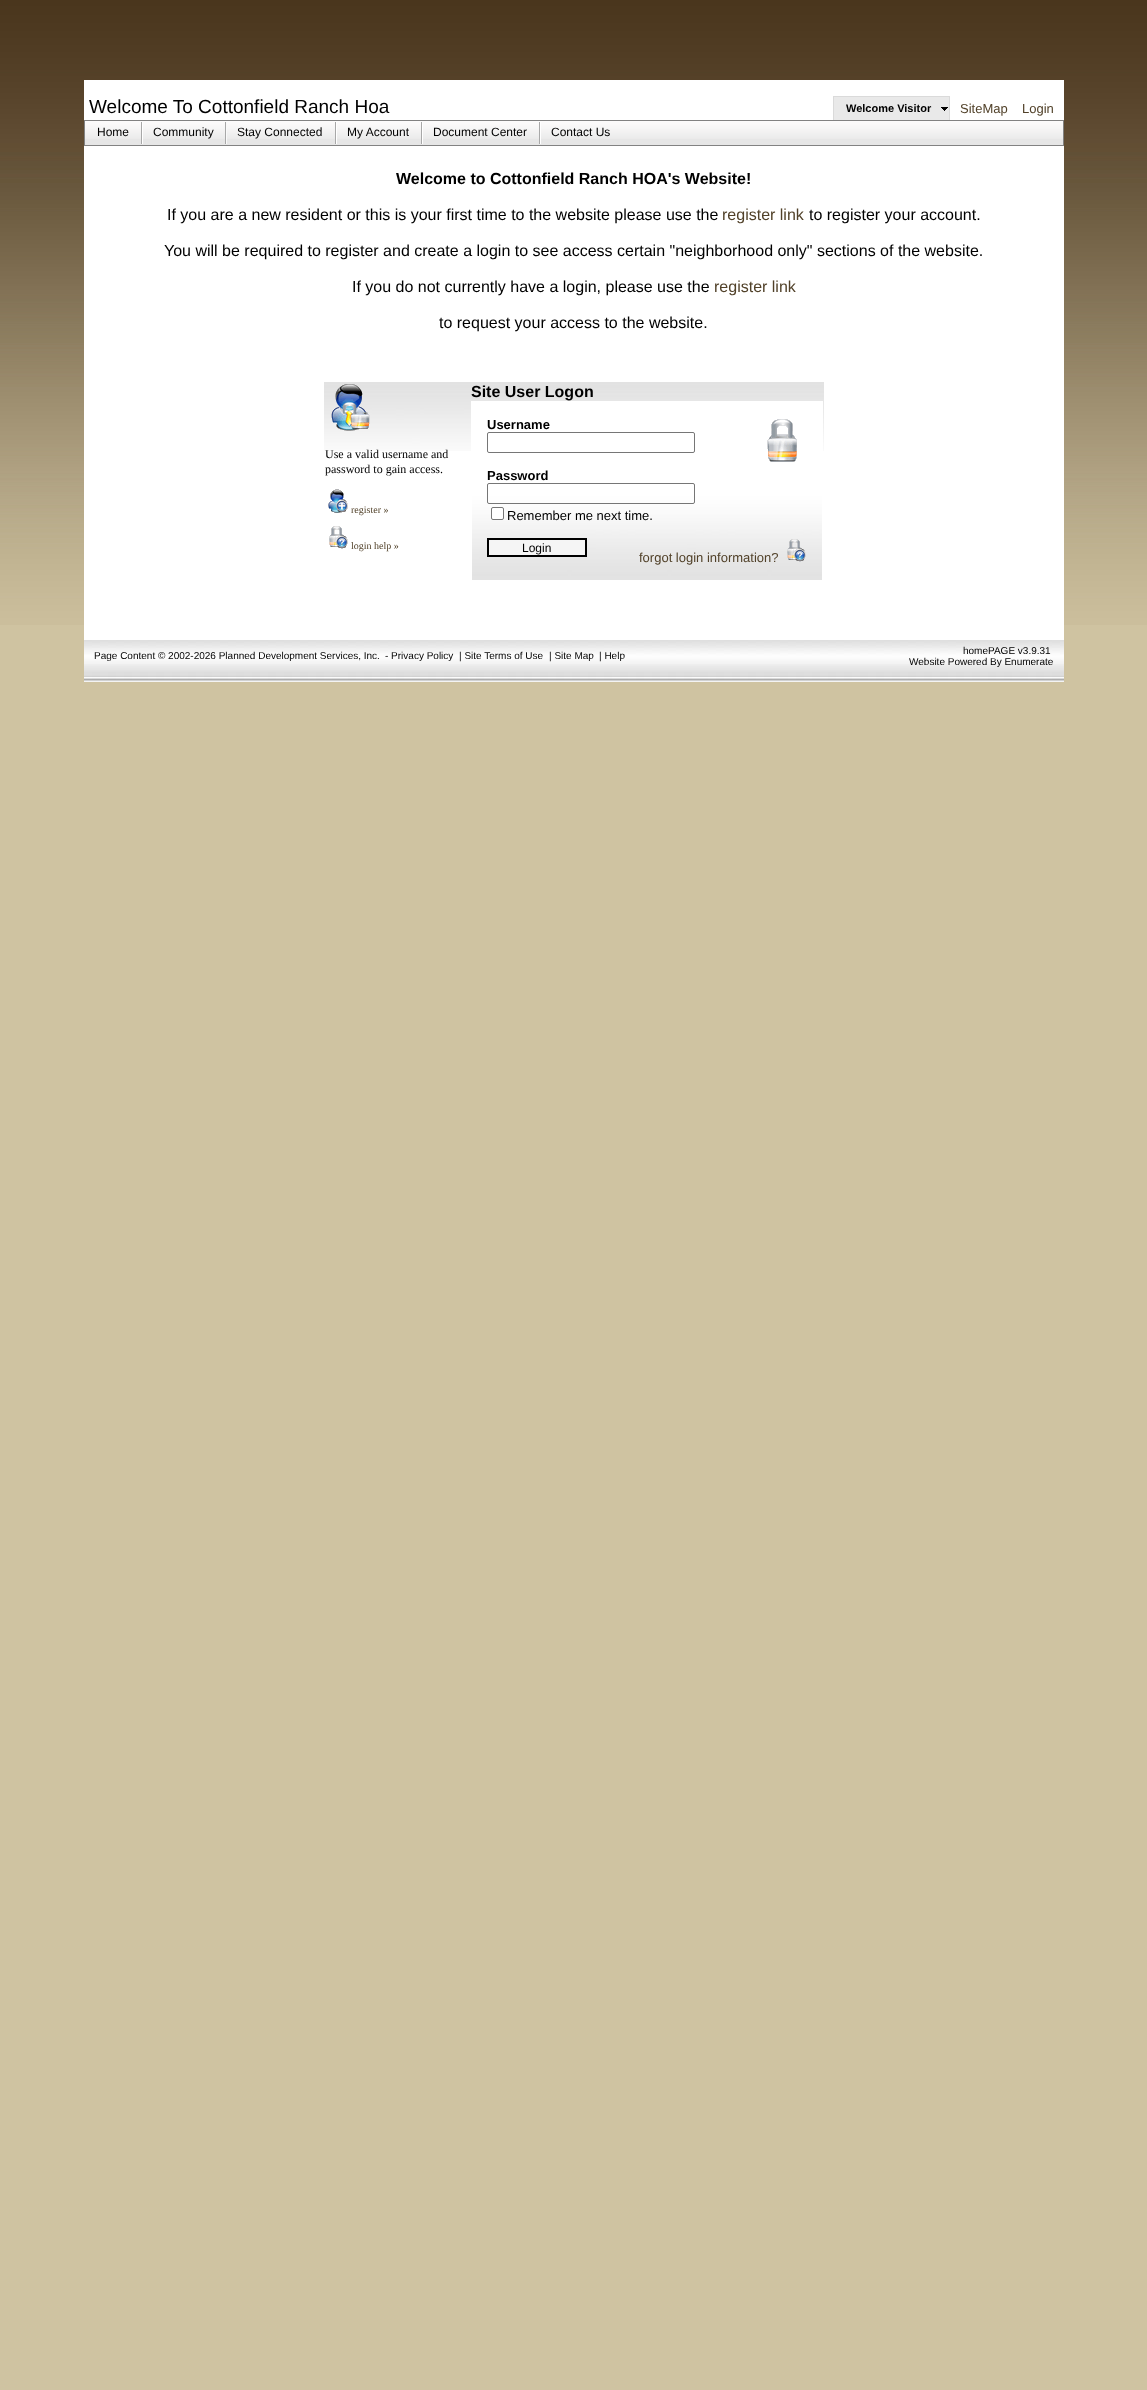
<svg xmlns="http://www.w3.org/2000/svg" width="1147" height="2390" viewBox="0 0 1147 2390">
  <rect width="100%" height="100%" fill="rgb(207,195,161)"/>
  <image x="0" y="0" width="1147" height="625" href="pic1.png"/>
  <rect x="84" y="80" width="980" height="40" fill="rgb(255,255,255)"/>
  <image x="84" y="0" width="980" height="80" href="pic2.png"/>
  <text x="89" y="113" font-family="Liberation Sans" font-size="19" fill="rgb(0,0,0)">Welcome To Cottonfield Ranch Hoa</text>
  <rect x="833" y="96" width="117" height="1" fill="rgb(218,218,218)"/>
  <rect x="949" y="96" width="1" height="24" fill="rgb(218,218,218)"/>
  <rect x="833" y="96" width="1" height="24" fill="rgb(218,218,218)"/>
  <rect x="834" y="97" width="115" height="23" fill="rgb(233,233,233)"/>
  <image x="941" y="107" width="7" height="4" href="pic3.png"/>
  <text x="846" y="112" font-family="Liberation Sans" font-size="11" font-weight="bold" fill="rgb(0,0,0)">Welcome Visitor</text>
  <g font-family="Liberation Sans" font-size="13" fill="rgb(81,65,41)">
    <text x="960" y="113">SiteMap</text>
    <text x="1022" y="113">Login</text>
  </g>
  <rect x="85" y="139" width="978" height="6" fill="rgb(230,230,230)"/>
  <image x="85" y="121" width="978" height="18" href="pic4.png"/>
  <rect x="84.5" y="120.5" width="979" height="25" fill="none" stroke="rgb(130,130,130)"/>
  <text x="97" y="136" font-family="Liberation Sans" font-size="12" fill="rgb(0,0,0)">Home</text>
  <image x="141" y="122" width="2" height="22" href="pic5.png"/>
  <text x="153" y="136" font-family="Liberation Sans" font-size="12" fill="rgb(0,0,0)">Community</text>
  <image x="225" y="122" width="2" height="22" href="pic6.png"/>
  <text x="237" y="136" font-family="Liberation Sans" font-size="12" fill="rgb(0,0,0)">Stay Connected</text>
  <image x="335" y="122" width="2" height="22" href="pic5.png"/>
  <text x="347" y="136" font-family="Liberation Sans" font-size="12" fill="rgb(0,0,0)">My Account</text>
  <image x="421" y="122" width="2" height="22" href="pic5.png"/>
  <text x="433" y="136" font-family="Liberation Sans" font-size="12" fill="rgb(0,0,0)">Document Center</text>
  <image x="539" y="122" width="2" height="22" href="pic5.png"/>
  <text x="551" y="136" font-family="Liberation Sans" font-size="12" fill="rgb(0,0,0)">Contact Us</text>
  <rect x="84" y="146" width="980" height="494" fill="rgb(255,255,255)"/>
  <text x="396" y="184" font-family="Liberation Sans" font-size="16" font-weight="bold" fill="rgb(0,0,0)">Welcome to Cottonfield Ranch HOA's Website!</text>
  <text x="167" y="220" font-family="Liberation Sans" font-size="16" fill="rgb(0,0,0)">If you are a new resident or this is your first time to the website please use the</text>
  <text x="722" y="220" font-family="Liberation Sans" font-size="16" fill="rgb(81,65,41)">register link</text>
  <g font-family="Liberation Sans" font-size="16" fill="rgb(0,0,0)">
    <text x="809" y="220">to register your account.</text>
    <text x="164" y="256">You will be required to register and create a login to see access certain "neighborhood only" sections of the website.</text>
    <text x="352" y="292">If you do not currently have a login, please use the</text>
  </g>
  <text x="714" y="292" font-family="Liberation Sans" font-size="16" fill="rgb(81,65,41)">register link</text>
  <text x="439" y="328" font-family="Liberation Sans" font-size="16" fill="rgb(0,0,0)">to request your access to the website.</text>
  <image x="324" y="382" width="500" height="69" href="pic7.png"/>
  <image x="331" y="384" width="39" height="47" href="pic8.png"/>
  <g font-family="Liberation Serif" font-size="12" fill="rgb(0,0,0)">
    <text>
      <tspan x="325" y="458">Use a valid username and</tspan>
      <tspan x="325" y="473">password to gain access.</tspan>
    </text>
  </g>
  <image x="328" y="489" width="20" height="24" href="pic9.png"/>
  <text x="351" y="513" font-family="Liberation Serif" font-size="10" fill="rgb(81,65,41)">register »</text>
  <image x="329" y="526" width="19" height="23" href="pic10.png"/>
  <text x="351" y="549" font-family="Liberation Serif" font-size="10" fill="rgb(81,65,41)">login help »</text>
  <text x="471" y="397" font-family="Liberation Sans" font-size="16" font-weight="bold" fill="rgb(0,0,0)">Site User Logon</text>
  <image x="472" y="401" width="350" height="179" href="pic11.png"/>
  <rect x="822" y="401" width="1" height="50" fill="rgb(255,255,255)"/>
  <rect x="471" y="401" width="1" height="50" fill="rgb(255,255,255)"/>
  <text x="487" y="429" font-family="Liberation Sans" font-size="13" font-weight="bold" fill="rgb(0,0,0)">Username</text>
  <image x="767" y="419" width="30" height="43" href="pic12.png"/>
  <rect x="487.5" y="432.5" width="207" height="20" rx="1.5" fill="none" stroke="rgb(118,118,118)"/>
  <text x="487" y="480" font-family="Liberation Sans" font-size="13" font-weight="bold" fill="rgb(0,0,0)">Password</text>
  <rect x="487.5" y="483.5" width="207" height="20" rx="1.5" fill="none" stroke="rgb(118,118,118)"/>
  <rect x="491.5" y="507.5" width="12" height="12" rx="1.5" fill="rgb(255,255,255)" stroke="rgb(118,118,118)"/>
  <text x="507" y="520" font-family="Liberation Sans" font-size="13" fill="rgb(0,0,0)">Remember me next time.</text>
  <rect x="488" y="539" width="98" height="17" fill="rgb(245,245,245)" stroke="rgb(0,0,0)" stroke-width="2"/>
  <text x="522" y="552" font-family="Liberation Sans" font-size="12" fill="rgb(0,0,0)">Login</text>
  <text x="639" y="562" font-family="Liberation Sans" font-size="13" fill="rgb(81,65,41)">forgot login information?</text>
  <image x="787" y="539" width="19" height="23" href="pic13.png"/>
  <image x="84" y="640" width="980" height="42" href="pic14.png"/>
  <g font-family="Liberation Sans" font-size="10" fill="rgb(0,0,0)">
    <text x="94" y="659">Page Content © 2002-2026 Planned Development Services, Inc.</text>
    <text x="385" y="659">- Privacy Policy</text>
    <text x="459" y="659">| Site Terms of Use</text>
    <text x="549" y="659">| Site Map</text>
    <text x="599" y="659">| Help</text>
    <text x="963" y="654">homePAGE v3.9.31</text>
    <text x="909" y="665">Website Powered By Enumerate</text>
  </g>
</svg>
